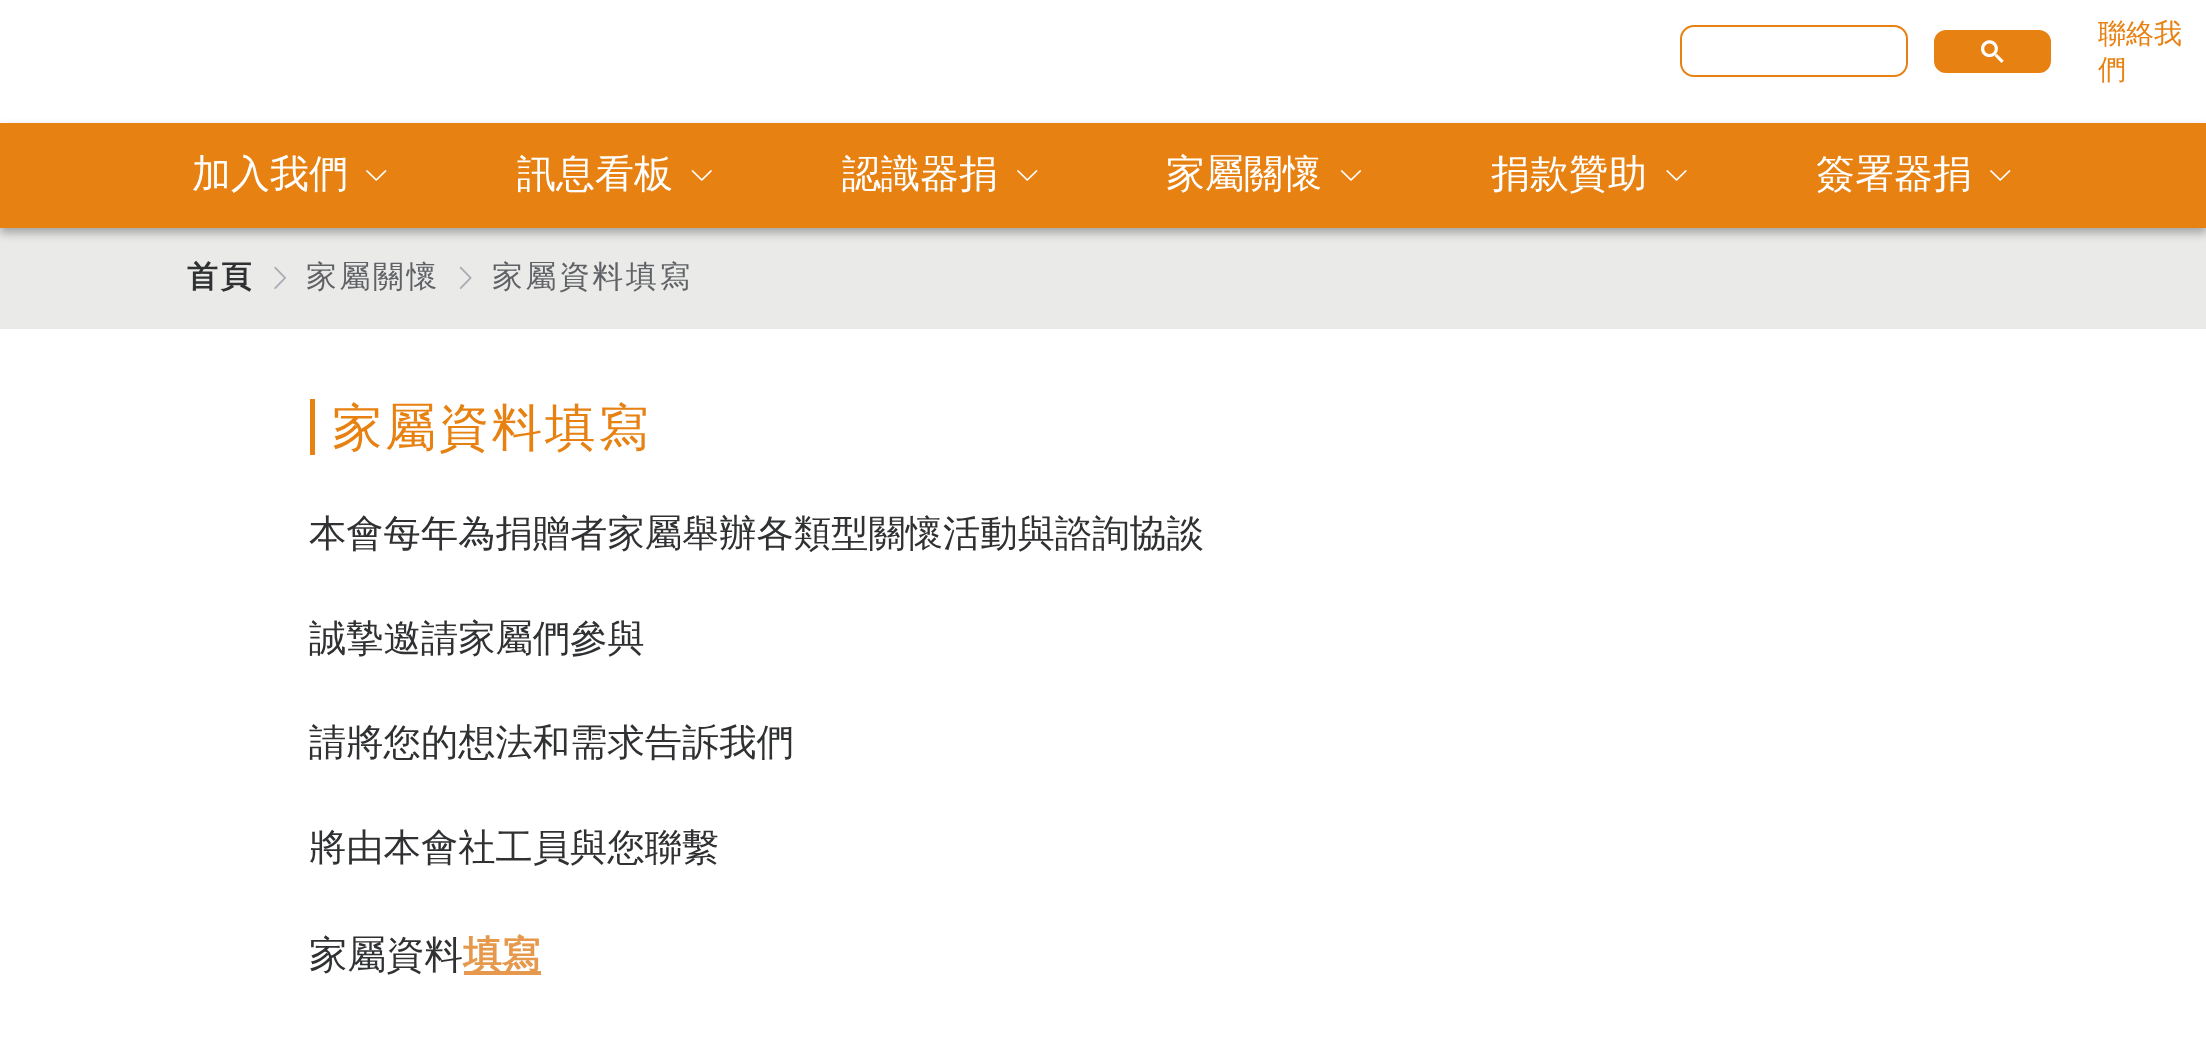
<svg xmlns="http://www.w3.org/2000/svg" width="2206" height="1050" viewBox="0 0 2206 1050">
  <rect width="100%" height="100%" fill="rgb(255,255,255)"/>
  <rect x="1681" y="26" width="226" height="50" rx="13" fill="none" stroke="rgb(231,129,18)" stroke-width="2"/>
  <rect x="1933" y="29" width="119" height="45" rx="13" fill="rgb(231,129,18)" stroke="rgb(255,255,255)" stroke-width="2"/>
  <image x="1981" y="40" width="23" height="23" href="pic1.png"/>
  <g font-family="WenQuanYi Zen Hei" font-size="28" font-weight="500" fill="rgb(231,129,18)">
    <text>
      <tspan x="2098" y="43">聯絡我</tspan>
      <tspan x="2098" y="79">們</tspan>
    </text>
  </g>
  <rect x="0" y="228" width="2206" height="101" fill="rgb(234,234,233)"/>
  <rect x="0" y="128" width="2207" height="105" fill="rgba(0,0,0,0.3)" filter="blur(5px)"/>
  <rect x="0" y="123" width="2206" height="105" fill="rgb(231,129,18)"/>
  <text x="192" y="187" font-family="WenQuanYi Zen Hei" font-size="39" font-weight="500" fill="rgb(255,255,255)">加入我們</text>
  <image x="366" y="170" width="21" height="11" href="pic2.png"/>
  <text x="517" y="187" font-family="WenQuanYi Zen Hei" font-size="39" font-weight="500" fill="rgb(255,255,255)">訊息看板</text>
  <image x="691" y="170" width="21" height="11" href="pic3.png"/>
  <text x="842" y="187" font-family="WenQuanYi Zen Hei" font-size="39" font-weight="500" fill="rgb(255,255,255)">認識器捐</text>
  <image x="1017" y="170" width="21" height="11" href="pic2.png"/>
  <text x="1166" y="187" font-family="WenQuanYi Zen Hei" font-size="39" font-weight="500" fill="rgb(255,255,255)">家屬關懷</text>
  <image x="1340" y="170" width="22" height="11" href="pic4.png"/>
  <text x="1491" y="187" font-family="WenQuanYi Zen Hei" font-size="39" font-weight="500" fill="rgb(255,255,255)">捐款贊助</text>
  <image x="1666" y="170" width="21" height="11" href="pic5.png"/>
  <text x="1816" y="187" font-family="WenQuanYi Zen Hei" font-size="39" font-weight="500" fill="rgb(255,255,255)">簽署器捐</text>
  <image x="1990" y="170" width="21" height="11" href="pic2.png"/>
  <text x="187" y="287" font-family="WenQuanYi Zen Hei" font-size="30.75" font-weight="bold" letter-spacing="2.75" fill="rgb(48,49,51)">首頁</text>
  <image x="274" y="266" width="12" height="23" href="pic6.png"/>
  <text x="306" y="287" font-family="WenQuanYi Zen Hei" font-size="30.75" font-weight="500" letter-spacing="2.75" fill="rgb(96,98,102)">家屬關懷</text>
  <image x="459" y="266" width="13" height="23" href="pic7.png"/>
  <text x="492" y="287" font-family="WenQuanYi Zen Hei" font-size="30.75" font-weight="500" letter-spacing="2.75" fill="rgb(96,98,102)">家屬資料填寫</text>
  <rect x="310" y="399" width="5" height="56" fill="rgb(231,129,18)"/>
  <text x="332" y="445" font-family="WenQuanYi Zen Hei" font-size="50.5" font-weight="500" letter-spacing="2.75" fill="rgb(231,129,18)">家屬資料填寫</text>
  <g font-family="WenQuanYi Zen Hei" font-size="37.3" font-weight="500" fill="rgb(48,49,51)">
    <text x="309" y="546">本會每年為捐贈者家屬舉辦各類型關懷活動與諮詢協談</text>
    <text x="309" y="651">誠摯邀請家屬們參與</text>
    <text x="309" y="755">請將您的想法和需求告訴我們</text>
    <text x="309" y="860">將由本會社工員與您聯繫</text>
  </g>
  <text x="309" y="968" font-family="WenQuanYi Zen Hei" font-size="38.5" font-weight="500" fill="rgb(48,49,51)">家屬資料</text>
  <rect x="464" y="971" width="77" height="4" fill="rgb(230,153,77)"/>
  <text x="463" y="968" font-family="WenQuanYi Zen Hei" font-size="38.5" font-weight="bold" fill="rgb(230,153,77)">填寫</text>
</svg>
